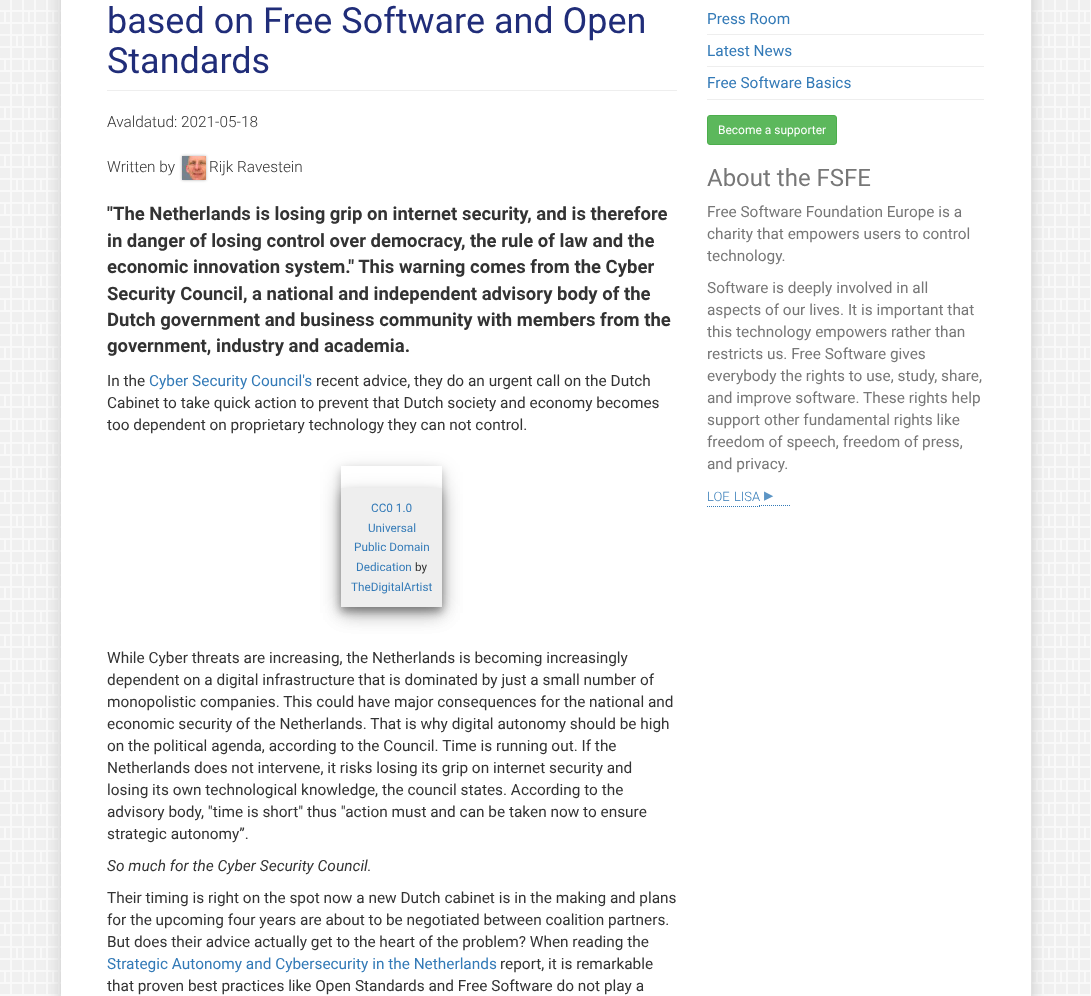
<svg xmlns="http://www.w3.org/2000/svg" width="1091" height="996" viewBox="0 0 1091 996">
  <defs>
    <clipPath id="clip1"><path d="M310 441H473V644H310ZM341 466H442V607H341Z" clip-rule="evenodd"/></clipPath>
    <clipPath id="clip2"><path d="M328 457H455V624H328ZM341 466H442V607H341Z" clip-rule="evenodd"/></clipPath>
  </defs>
  <rect width="100%" height="100%" fill="rgb(249,249,249)"/>
  <image x="0" y="0" width="1090" height="994" href="pic1.png"/>
  <rect x="61" y="-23" width="970" height="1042" fill="rgb(200,200,200)" filter="blur(7.5px)"/>
  <rect x="61" y="0" width="970" height="996" fill="rgb(255,255,255)"/>
  <rect x="107" y="90" width="570" height="1" fill="rgb(238,238,238)"/>
  <g font-family="Roboto" font-size="36" fill="rgb(32,45,121)">
    <text>
      <tspan x="107" y="33">based on Free Software and Open</tspan>
      <tspan x="107" y="73">Standards</tspan>
    </text>
  </g>
  <text x="107" y="127" font-family="Roboto" font-size="15.4" font-weight="300" fill="rgb(51,51,51)">Avaldatud: 2021-05-18</text>
  <rect x="182" y="156" width="24" height="24" fill="rgba(0,0,0,0.3)" filter="blur(1.5px)"/>
  <text x="107" y="172" font-family="Roboto" font-size="15.4" font-weight="300" fill="rgb(51,51,51)">Written by</text>
  <image x="182" y="156" width="24" height="24" href="pic2.png"/>
  <text x="209" y="172" font-family="Roboto" font-size="15.4" font-weight="300" fill="rgb(51,51,51)">Rijk Ravestein</text>
  <g font-family="Roboto" font-size="18.5" font-weight="bold" fill="rgb(51,51,51)">
    <text>
      <tspan x="107" y="220">"The Netherlands is losing grip on internet security, and is therefore</tspan>
      <tspan x="107" y="247">in danger of losing control over democracy, the rule of law and the</tspan>
      <tspan x="107" y="273">economic innovation system." This warning comes from the Cyber</tspan>
      <tspan x="107" y="300">Security Council, a national and independent advisory body of the</tspan>
      <tspan x="107" y="326">Dutch government and business community with members from the</tspan>
      <tspan x="107" y="352">government, industry and academia.</tspan>
    </text>
  </g>
  <text x="107" y="386" font-family="Roboto" font-size="15.4" fill="rgb(51,51,51)">In the</text>
  <text x="149" y="386" font-family="Roboto" font-size="15.4" fill="rgb(51,122,183)">Cyber Security Council's</text>
  <g font-family="Roboto" font-size="15.4" fill="rgb(51,51,51)">
    <text x="316" y="386">recent advice, they do an urgent call on the Dutch</text>
    <text>
      <tspan x="107" y="408">Cabinet to take quick action to prevent that Dutch society and economy becomes</tspan>
      <tspan x="107" y="430">too dependent on proprietary technology they can not control.</tspan>
    </text>
  </g>
  <g clip-path="url(#clip1)">
    <rect x="341" y="472" width="101" height="141" fill="rgba(0,0,0,0.19)" filter="blur(10px)"/>
  </g>
  <g clip-path="url(#clip2)">
    <rect x="341" y="470" width="101" height="141" fill="rgba(0,0,0,0.2)" filter="blur(4px)"/>
  </g>
  <rect x="341" y="494" width="101" height="119" fill="rgba(0,0,0,0.19)" filter="blur(10px)"/>
  <rect x="341" y="492" width="101" height="119" fill="rgba(0,0,0,0.2)" filter="blur(4px)"/>
  <rect x="341" y="488" width="101" height="119" fill="rgb(238,238,238)"/>
  <g font-family="Roboto" font-size="11.75" fill="rgb(51,122,183)">
    <text x="371" y="512">CC0 1.0</text>
    <text x="368" y="532">Universal</text>
    <text x="354" y="551">Public Domain</text>
    <text x="356" y="571">Dedication</text>
  </g>
  <text x="415" y="571" font-family="Roboto" font-size="11.75" fill="rgb(51,51,51)">by</text>
  <text x="351" y="591" font-family="Roboto" font-size="11.75" fill="rgb(51,122,183)">TheDigitalArtist</text>
  <g font-family="Roboto" font-size="15.4" fill="rgb(51,51,51)">
    <text>
      <tspan x="107" y="663">While Cyber threats are increasing, the Netherlands is becoming increasingly</tspan>
      <tspan x="107" y="685">dependent on a digital infrastructure that is dominated by just a small number of</tspan>
      <tspan x="107" y="707">monopolistic companies. This could have major consequences for the national and</tspan>
      <tspan x="107" y="729">economic security of the Netherlands. That is why digital autonomy should be high</tspan>
      <tspan x="107" y="751">on the political agenda, according to the Council. Time is running out. If the</tspan>
      <tspan x="107" y="773">Netherlands does not intervene, it risks losing its grip on internet security and</tspan>
      <tspan x="107" y="795">losing its own technological knowledge, the council states. According to the</tspan>
      <tspan x="107" y="817">advisory body, "time is short" thus "action must and can be taken now to ensure</tspan>
      <tspan x="107" y="839">strategic autonomy”.</tspan>
    </text>
  </g>
  <text x="107" y="871" font-family="Roboto" font-size="15.4" font-style="italic" fill="rgb(51,51,51)">So much for the Cyber Security Council.</text>
  <g font-family="Roboto" font-size="15.4" fill="rgb(51,51,51)">
    <text>
      <tspan x="107" y="903">Their timing is right on the spot now a new Dutch cabinet is in the making and plans</tspan>
      <tspan x="107" y="925">for the upcoming four years are about to be negotiated between coalition partners.</tspan>
      <tspan x="107" y="947">But does their advice actually get to the heart of the problem? When reading the</tspan>
    </text>
  </g>
  <text x="107" y="969" font-family="Roboto" font-size="15.4" fill="rgb(51,122,183)">Strategic Autonomy and Cybersecurity in the Netherlands</text>
  <g font-family="Roboto" font-size="15.4" fill="rgb(51,51,51)">
    <text x="500" y="969">report, it is remarkable</text>
    <text x="107" y="991">that proven best practices like Open Standards and Free Software do not play a</text>
  </g>
  <rect x="707" y="34" width="277" height="1" fill="rgb(238,238,238)"/>
  <text x="707" y="24" font-family="Roboto" font-size="15.4" fill="rgb(51,122,183)">Press Room</text>
  <rect x="707" y="66" width="277" height="1" fill="rgb(238,238,238)"/>
  <text x="707" y="56" font-family="Roboto" font-size="15.4" fill="rgb(51,122,183)">Latest News</text>
  <rect x="707" y="99" width="277" height="1" fill="rgb(238,238,238)"/>
  <text x="707" y="88" font-family="Roboto" font-size="15.4" fill="rgb(51,122,183)">Free Software Basics</text>
  <rect x="707.5" y="115.5" width="129" height="29" rx="2.5" fill="rgb(92,184,92)" stroke="rgb(76,174,76)"/>
  <text x="718" y="134" font-family="Roboto" font-size="12" fill="rgb(255,255,255)">Become a supporter</text>
  <text x="707" y="186" font-family="Roboto" font-size="24" fill="rgb(119,119,119)">About the FSFE</text>
  <g font-family="Roboto" font-size="15.4" fill="rgb(119,119,119)">
    <text>
      <tspan x="707" y="217">Free Software Foundation Europe is a</tspan>
      <tspan x="707" y="239">charity that empowers users to control</tspan>
      <tspan x="707" y="261">technology.</tspan>
    </text>
    <text>
      <tspan x="707" y="293">Software is deeply involved in all</tspan>
      <tspan x="707" y="315">aspects of our lives. It is important that</tspan>
      <tspan x="707" y="337">this technology empowers rather than</tspan>
      <tspan x="707" y="359">restricts us. Free Software gives</tspan>
      <tspan x="707" y="381">everybody the rights to use, study, share,</tspan>
      <tspan x="707" y="403">and improve software.</tspan>
    </text>
    <text x="863" y="403">These rights help</text>
    <text>
      <tspan x="707" y="425">support other fundamental rights like</tspan>
      <tspan x="707" y="447">freedom of speech, freedom of press,</tspan>
      <tspan x="707" y="469">and privacy.</tspan>
    </text>
  </g>
  <path d="M707 506.5H760" fill="none" stroke="rgb(51,122,183)" stroke-dasharray="1 1"/>
  <path d="M759 505.5H791" fill="none" stroke="rgb(51,122,183)" stroke-dasharray="1 1"/>
  <g font-family="Roboto" font-size="13" font-weight="300" fill="rgb(51,122,183)">
    <text x="707" y="501">LOE</text>
    <text x="734" y="501">LISA</text>
  </g>
  <text x="764" y="501" font-family="DejaVu Sans" font-size="18.5" fill="rgb(92,149,197)">▸</text>
</svg>
